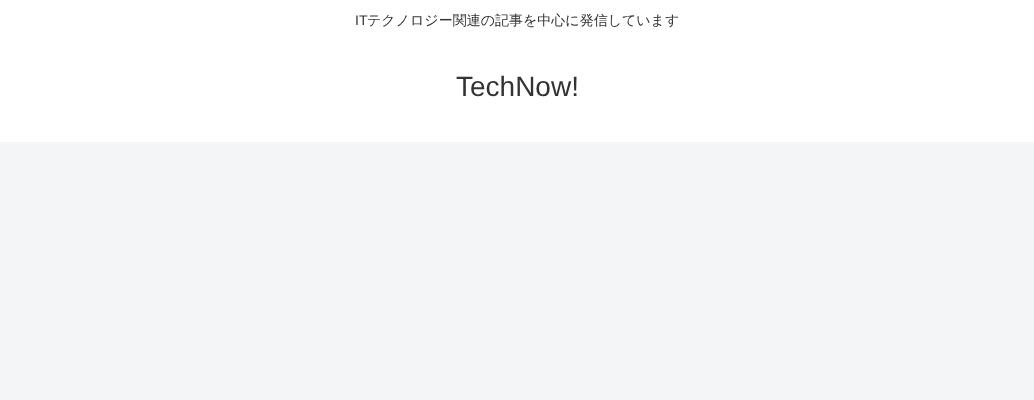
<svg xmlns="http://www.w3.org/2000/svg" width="1034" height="400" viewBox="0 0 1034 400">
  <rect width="100%" height="100%" fill="rgb(244,245,247)"/>
  <rect x="0" y="0" width="1034" height="142" fill="rgb(255,255,255)"/>
  <text x="355" y="25" font-family="Liberation Sans" font-size="14" fill="rgb(51,51,51)">IT</text>
  <text x="367" y="25" font-family="WenQuanYi Zen Hei" font-size="14" font-weight="500" fill="rgb(51,51,51)">テクノロジー関連の記事を中心に発信しています</text>
  <text x="456" y="96" font-family="Liberation Sans" font-size="28" fill="rgb(51,51,51)">TechNow!</text>
</svg>
